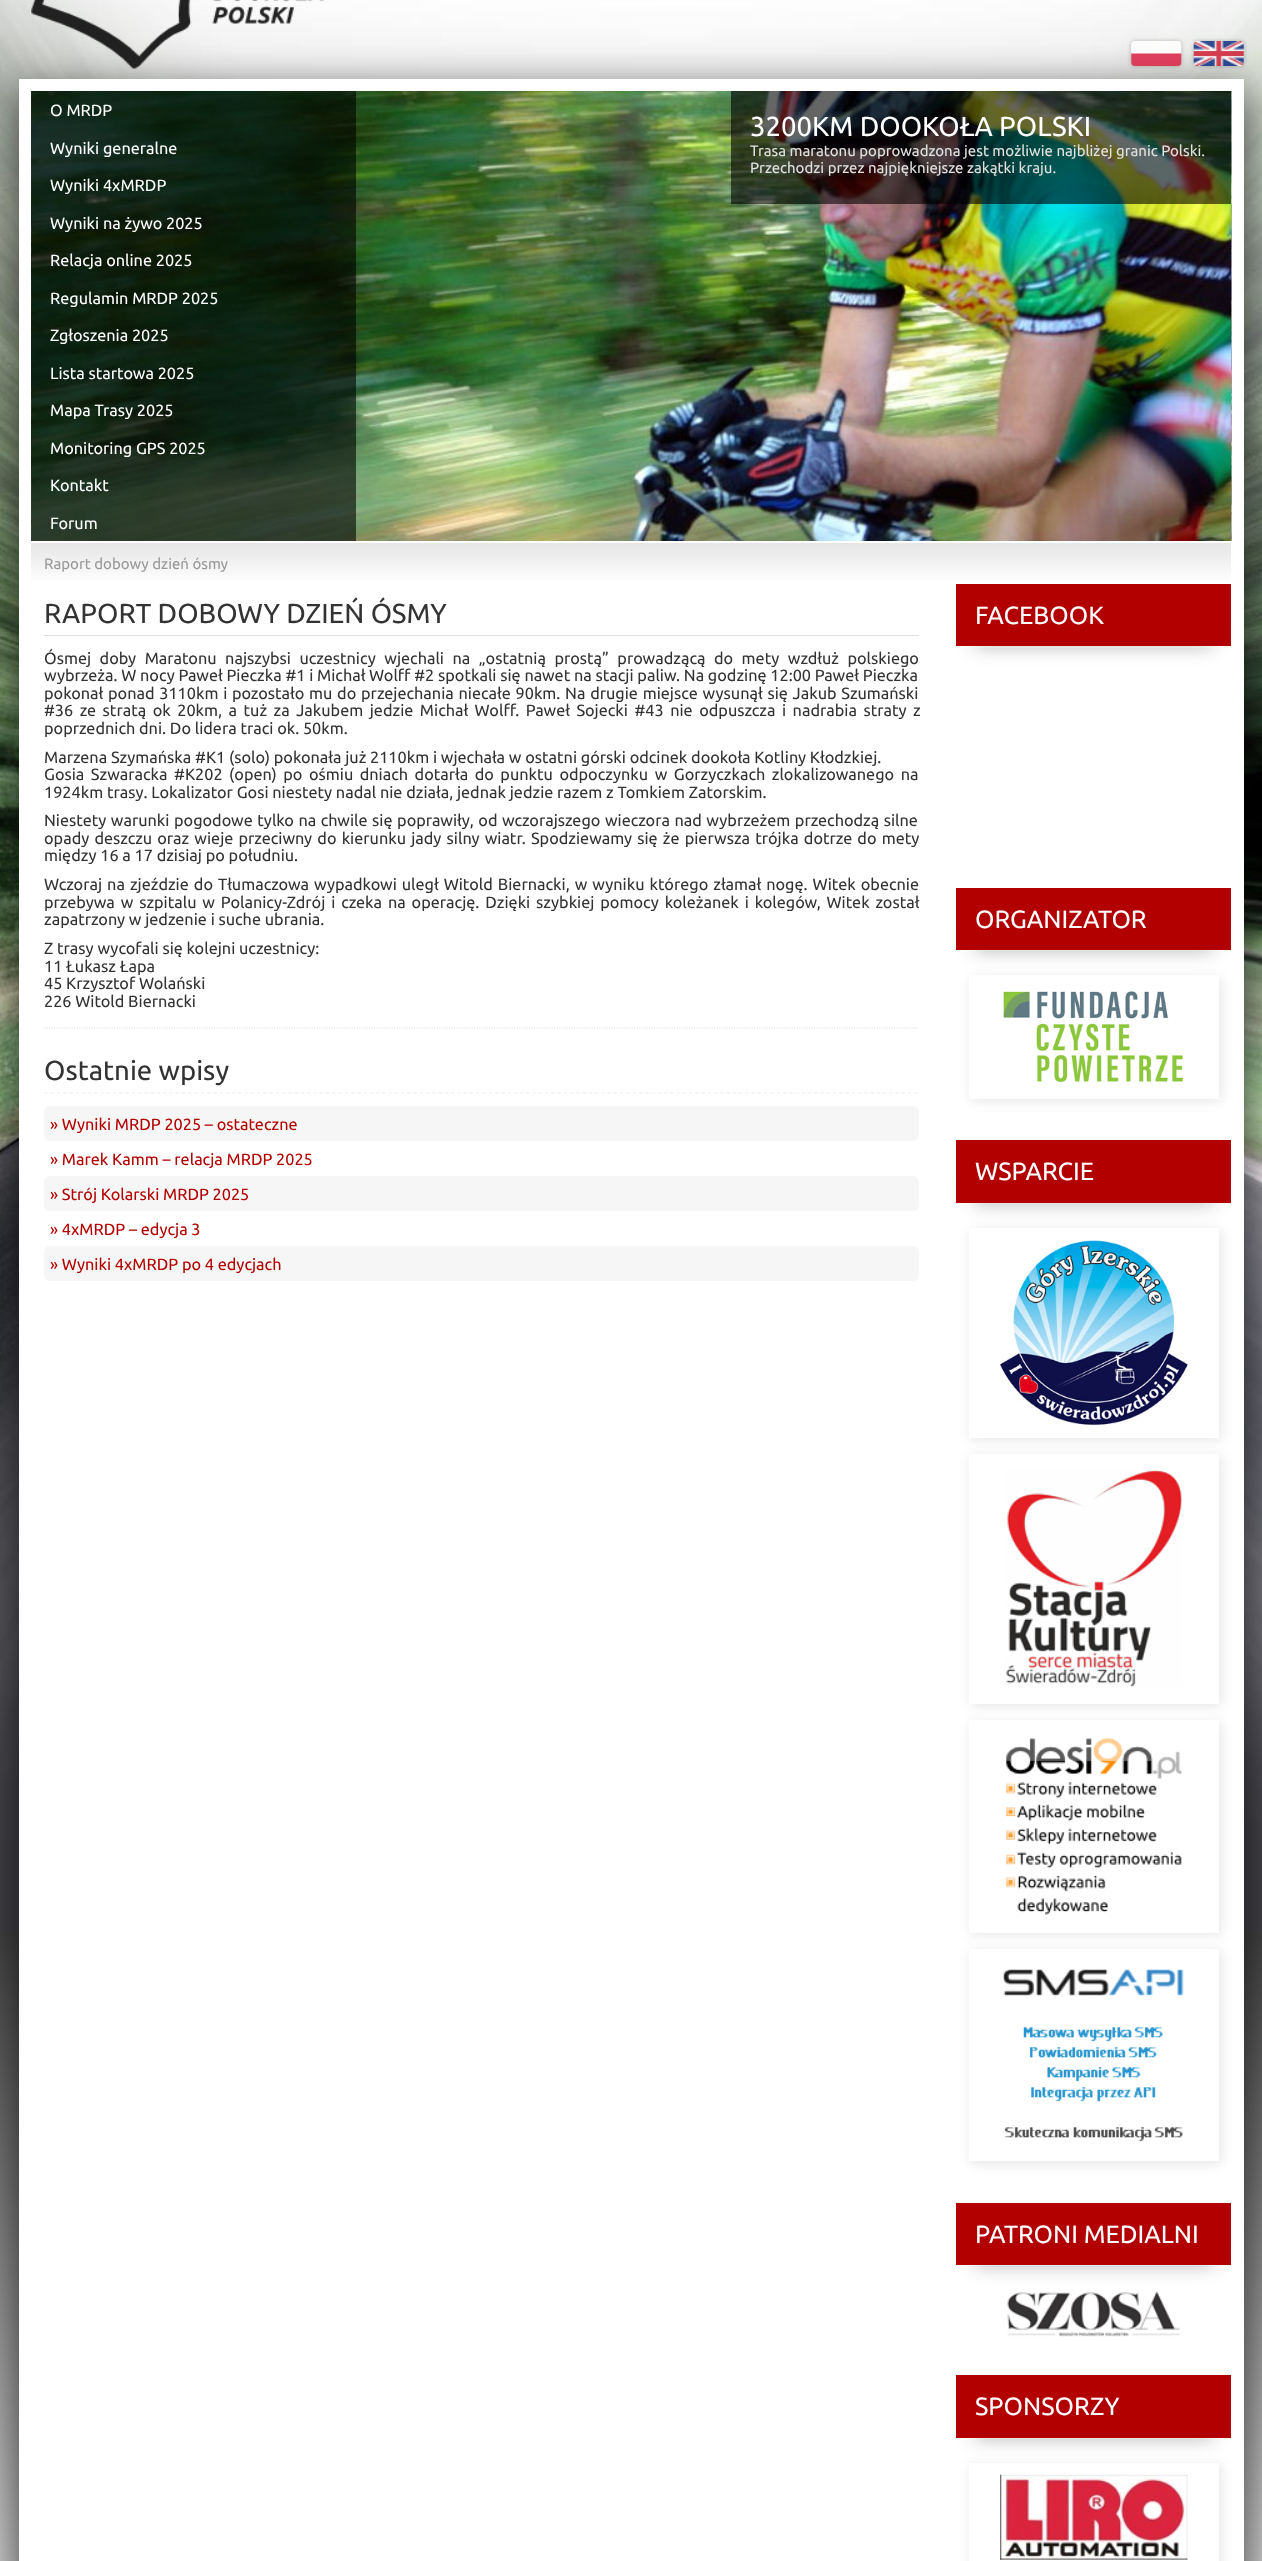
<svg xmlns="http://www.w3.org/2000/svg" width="1262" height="2561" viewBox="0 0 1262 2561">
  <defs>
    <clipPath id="clip1"><path d="M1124 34H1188V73H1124ZM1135 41H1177C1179 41 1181 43 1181 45V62C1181 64 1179 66 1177 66H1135C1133 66 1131 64 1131 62V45C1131 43 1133 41 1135 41Z" clip-rule="evenodd"/></clipPath>
    <clipPath id="clip2"><path d="M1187 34H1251V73H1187ZM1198 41H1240C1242 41 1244 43 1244 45V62C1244 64 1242 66 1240 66H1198C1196 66 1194 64 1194 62V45C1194 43 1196 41 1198 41Z" clip-rule="evenodd"/></clipPath>
    <linearGradient id="g1" gradientUnits="userSpaceOnUse" x1="631" y1="542" x2="631" y2="584"><stop offset="0" stop-color="rgb(229,229,229)"/><stop offset="1" stop-color="rgb(255,255,255)"/></linearGradient>
    <clipPath id="clip3"><path d="M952 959H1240V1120H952ZM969 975H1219V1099H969Z" clip-rule="evenodd"/></clipPath>
    <clipPath id="clip4"><path d="M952 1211H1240V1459H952ZM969 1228H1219V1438H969Z" clip-rule="evenodd"/></clipPath>
    <clipPath id="clip5"><path d="M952 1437H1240V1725H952ZM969 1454H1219V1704H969Z" clip-rule="evenodd"/></clipPath>
    <clipPath id="clip6"><path d="M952 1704H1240V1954H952ZM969 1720H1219V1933H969Z" clip-rule="evenodd"/></clipPath>
    <clipPath id="clip7"><path d="M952 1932H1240V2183H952ZM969 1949H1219V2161H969Z" clip-rule="evenodd"/></clipPath>
    <clipPath id="clip8"><path d="M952 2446H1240V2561H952ZM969 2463H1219V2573H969Z" clip-rule="evenodd"/></clipPath>
  </defs>
  <rect width="100%" height="100%" fill="rgb(255,255,255)"/>
  <image x="0" y="0" width="1262" height="2561" href="pic1.png"/>
  <rect x="19" y="91" width="1225" height="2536" fill="rgba(0,0,0,0.7)" filter="blur(22px)"/>
  <image x="31" y="0" width="293" height="69" href="pic2.png"/>
  <g clip-path="url(#clip1)">
    <rect x="1131" y="41" width="50" height="25" rx="4" fill="rgba(0,0,0,0.24)" filter="blur(2px)"/>
  </g>
  <image x="1131" y="41" width="51" height="25" href="pic3.png"/>
  <g clip-path="url(#clip2)">
    <rect x="1194" y="41" width="50" height="25" rx="4" fill="rgba(0,0,0,0.24)" filter="blur(2px)"/>
  </g>
  <image x="1193" y="41" width="51" height="25" href="pic4.png"/>
  <rect x="19" y="79" width="1225" height="2482" fill="rgb(255,255,255)"/>
  <image x="31" y="91" width="1201" height="450" href="pic5.png"/>
  <image x="31" y="91" width="1201" height="450" href="pic6.png"/>
  <image x="31" y="91" width="1201" height="450" href="pic7.png"/>
  <rect x="31" y="91" width="325" height="450" fill="rgba(0,0,0,0.6)"/>
  <g font-family="Ubuntu" font-size="16.25" fill="rgb(255,255,255)">
    <text x="50" y="116">O MRDP</text>
    <text x="50" y="154">Wyniki generalne</text>
    <text x="50" y="191">Wyniki 4xMRDP</text>
    <text x="50" y="229">Wyniki na żywo 2025</text>
    <text x="50" y="266">Relacja online 2025</text>
    <text x="50" y="304">Regulamin MRDP 2025</text>
    <text x="50" y="341">Zgłoszenia 2025</text>
    <text x="50" y="379">Lista startowa 2025</text>
    <text x="50" y="416">Mapa Trasy 2025</text>
    <text x="50" y="454">Monitoring GPS 2025</text>
    <text x="50" y="491">Kontakt</text>
    <text x="50" y="529">Forum</text>
  </g>
  <rect x="731" y="91" width="500" height="113" fill="rgba(0,0,0,0.6)"/>
  <text x="750" y="136" font-family="Ubuntu" font-size="27.5" fill="rgb(255,255,255)">3200KM DOOKOŁA POLSKI</text>
  <g font-family="Ubuntu" font-size="15" fill="rgb(224,226,224)">
    <text>
      <tspan x="750" y="156">Trasa maratonu poprowadzona jest możliwie najbliżej granic Polski.</tspan>
      <tspan x="750" y="173">Przechodzi przez najpiękniejsze zakątki kraju.</tspan>
    </text>
  </g>
  <rect x="31" y="543" width="1200" height="37" fill="url(#g1)"/>
  <text x="44" y="569" font-family="Ubuntu" font-size="15" fill="rgb(153,153,153)">Raport dobowy dzień ósmy</text>
  <rect x="44" y="635" width="875" height="1" fill="rgb(221,221,221)"/>
  <text x="44" y="623" font-family="Ubuntu" font-size="27.5" fill="rgb(51,51,51)">RAPORT DOBOWY DZIEŃ ÓSMY</text>
  <g font-family="Ubuntu" font-size="16.25" fill="rgb(51,51,51)">
    <text>
      <tspan x="44" y="664" word-spacing="4.75">Ósmej doby Maratonu najszybsi uczestnicy wjechali na „ostatnią prostą” prowadzącą do mety wzdłuż polskiego</tspan>
      <tspan x="44" y="681">wybrzeża. W nocy Paweł Pieczka #1 i Michał Wolff #2 spotkali się nawet na stacji paliw. Na godzinę 12:00 Paweł Pieczka</tspan>
      <tspan x="44" y="699" word-spacing="1">pokonał ponad 3110km i pozostało mu do przejechania niecałe 90km. Na drugie miejsce wysunął się Jakub Szumański</tspan>
      <tspan x="44" y="716" word-spacing="2.75">#36 ze stratą ok 20km, a tuż za Jakubem jedzie Michał Wolff. Paweł Sojecki #43 nie odpuszcza i nadrabia straty z</tspan>
      <tspan x="44" y="734">poprzednich dni. Do lidera traci ok. 50km.</tspan>
      <tspan x="44" y="763">Marzena Szymańska #K1 (solo) pokonała już 2110km i wjechała w ostatni górski odcinek dookoła Kotliny Kłodzkiej.</tspan>
      <tspan x="44" y="780" word-spacing="2.75">Gosia Szwaracka #K202 (open) po ośmiu dniach dotarła do punktu odpoczynku w Gorzyczkach zlokalizowanego na</tspan>
      <tspan x="44" y="798">1924km trasy. Lokalizator Gosi niestety nadal nie działa, jednak jedzie razem z Tomkiem Zatorskim.</tspan>
      <tspan x="44" y="826" word-spacing="0.75">Niestety warunki pogodowe tylko na chwile się poprawiły, od wczorajszego wieczora nad wybrzeżem przechodzą silne</tspan>
      <tspan x="44" y="844" word-spacing="1.4">opady deszczu oraz wieje przeciwny do kierunku jady silny wiatr. Spodziewamy się że pierwsza trójka dotrze do mety</tspan>
      <tspan x="44" y="861">między 16 a 17 dzisiaj po południu.</tspan>
      <tspan x="44" y="890" word-spacing="1.25">Wczoraj na zjeździe do Tłumaczowa wypadkowi uległ Witold Biernacki, w wyniku którego złamał nogę. Witek obecnie</tspan>
      <tspan x="44" y="908" word-spacing="2.1">przebywa w szpitalu w Polanicy-Zdrój i czeka na operację. Dzięki szybkiej pomocy koleżanek i kolegów, Witek został</tspan>
      <tspan x="44" y="925">zapatrzony w jedzenie i suche ubrania.</tspan>
      <tspan x="44" y="954">Z trasy wycofali się kolejni uczestnicy:</tspan>
      <tspan x="44" y="972">11 Łukasz Łapa</tspan>
      <tspan x="44" y="989">45 Krzysztof Wolański</tspan>
      <tspan x="44" y="1007">226 Witold Biernacki</tspan>
    </text>
  </g>
  <path d="M44 1028H919" fill="none" stroke="rgb(221,221,221)" stroke-width="1.2" stroke-dasharray="1.25 1.25"/>
  <path d="M44 1093H919" fill="none" stroke="rgb(238,238,238)" stroke-width="1.2" stroke-dasharray="3.75 2.51"/>
  <text x="44" y="1080" font-family="Ubuntu" font-size="27.5" fill="rgb(51,51,51)">Ostatnie wpisy</text>
  <rect x="44" y="1106" width="875" height="35" rx="6" fill="rgb(246,246,246)"/>
  <g font-family="Ubuntu" font-size="16.25" fill="rgb(178,0,0)">
    <text x="50" y="1130">» Wyniki MRDP 2025 – ostateczne</text>
    <text x="50" y="1165">» Marek Kamm – relacja MRDP 2025</text>
  </g>
  <rect x="44" y="1176" width="875" height="35" rx="6" fill="rgb(246,246,246)"/>
  <g font-family="Ubuntu" font-size="16.25" fill="rgb(178,0,0)">
    <text x="50" y="1200">» Strój Kolarski MRDP 2025</text>
    <text x="50" y="1235">» 4xMRDP – edycja 3</text>
  </g>
  <rect x="44" y="1246" width="875" height="35" rx="6" fill="rgb(246,246,246)"/>
  <text x="50" y="1270" font-family="Ubuntu" font-size="16.25" fill="rgb(178,0,0)">» Wyniki 4xMRDP po 4 edycjach</text>
  <rect x="975" y="621" width="238" height="25" fill="rgba(0,0,0,0.3)" filter="blur(9.5px)"/>
  <path d="M956 585V648H1231V646H956Z" fill="rgba(255,255,255,0.25)"/>
  <rect x="956" y="584" width="275" height="62" fill="rgb(178,0,0)"/>
  <text x="975" y="624" font-family="Ubuntu" font-size="25" fill="rgb(255,255,255)">FACEBOOK</text>
  <rect x="975" y="925" width="238" height="25" fill="rgba(0,0,0,0.3)" filter="blur(9.5px)"/>
  <path d="M956 889V951H1231V950H956Z" fill="rgba(255,255,255,0.25)"/>
  <rect x="956" y="888" width="275" height="62" fill="rgb(178,0,0)"/>
  <text x="975" y="928" font-family="Ubuntu" font-size="25" fill="rgb(255,255,255)">ORGANIZATOR</text>
  <g clip-path="url(#clip3)">
    <rect x="971" y="978" width="250" height="123" fill="rgba(0,0,0,0.1)" filter="blur(6px)"/>
  </g>
  <image x="1003" y="991" width="181" height="92" href="pic8.png"/>
  <rect x="975" y="1178" width="238" height="25" fill="rgba(0,0,0,0.3)" filter="blur(9.5px)"/>
  <path d="M956 1141V1204H1231V1202H956Z" fill="rgba(255,255,255,0.25)"/>
  <rect x="956" y="1140" width="275" height="63" fill="rgb(178,0,0)"/>
  <text x="975" y="1180" font-family="Ubuntu" font-size="25" fill="rgb(255,255,255)">WSPARCIE</text>
  <g clip-path="url(#clip4)">
    <rect x="971" y="1230" width="250" height="210" fill="rgba(0,0,0,0.1)" filter="blur(6px)"/>
  </g>
  <image x="1000" y="1240" width="188" height="185" href="pic9.png"/>
  <g clip-path="url(#clip5)">
    <rect x="971" y="1456" width="250" height="250" fill="rgba(0,0,0,0.1)" filter="blur(6px)"/>
  </g>
  <image x="1006" y="1470" width="176" height="217" href="pic10.png"/>
  <g clip-path="url(#clip6)">
    <rect x="971" y="1723" width="250" height="212" fill="rgba(0,0,0,0.1)" filter="blur(6px)"/>
  </g>
  <image x="1006" y="1738" width="176" height="177" href="pic11.png"/>
  <g clip-path="url(#clip7)">
    <rect x="971" y="1951" width="250" height="213" fill="rgba(0,0,0,0.1)" filter="blur(6px)"/>
  </g>
  <image x="1003" y="1969" width="181" height="173" href="pic12.png"/>
  <rect x="975" y="2240" width="238" height="25" fill="rgba(0,0,0,0.3)" filter="blur(9.5px)"/>
  <path d="M956 2204V2266H1231V2265H956Z" fill="rgba(255,255,255,0.25)"/>
  <rect x="956" y="2203" width="275" height="62" fill="rgb(178,0,0)"/>
  <text x="975" y="2243" font-family="Ubuntu" font-size="25" fill="rgb(255,255,255)">PATRONI MEDIALNI</text>
  <image x="1007" y="2291" width="173" height="46" href="pic13.png"/>
  <rect x="975" y="2413" width="238" height="25" fill="rgba(0,0,0,0.3)" filter="blur(9.5px)"/>
  <path d="M956 2376V2439H1231V2438H956Z" fill="rgba(255,255,255,0.25)"/>
  <rect x="956" y="2375" width="275" height="63" fill="rgb(178,0,0)"/>
  <text x="975" y="2415" font-family="Ubuntu" font-size="25" fill="rgb(255,255,255)">SPONSORZY</text>
  <g clip-path="url(#clip8)">
    <rect x="971" y="2465" width="250" height="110" fill="rgba(0,0,0,0.1)" filter="blur(6px)"/>
  </g>
  <image x="1000" y="2474" width="188" height="86" href="pic14.png"/>
</svg>
